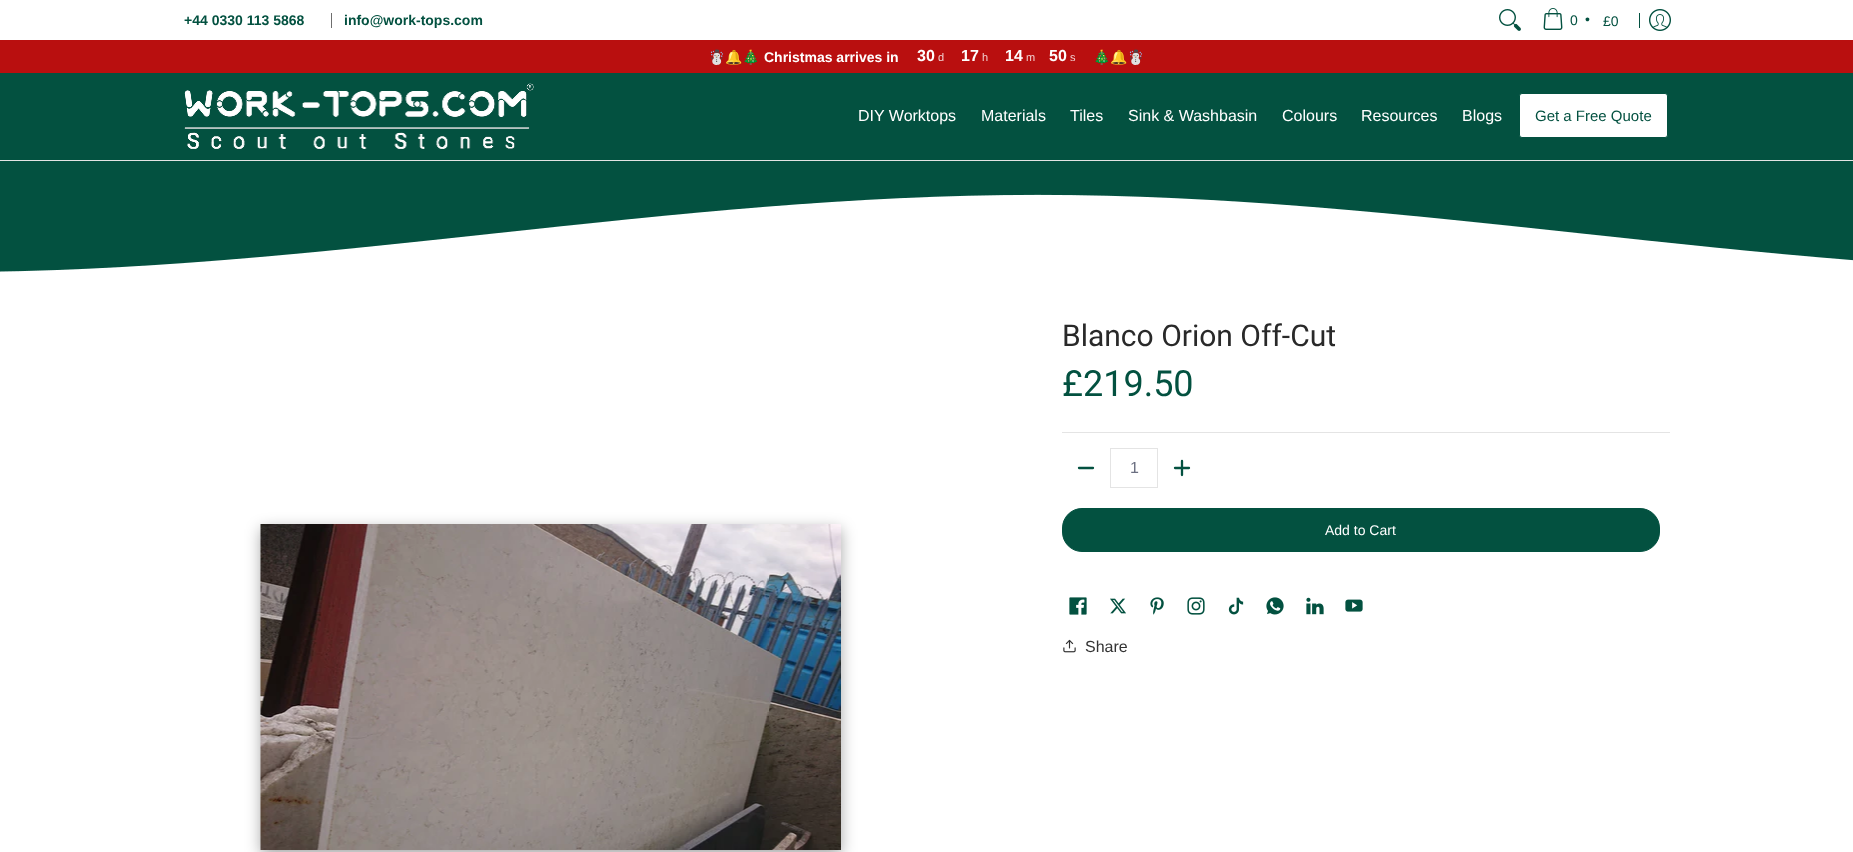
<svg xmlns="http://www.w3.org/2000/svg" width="1853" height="852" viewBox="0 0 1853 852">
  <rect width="100%" height="100%" fill="rgb(255,255,255)"/>
  <rect x="0" y="73" width="1853" height="87" fill="rgb(3,81,64)"/>
  <rect x="331" y="13" width="1" height="15" fill="rgb(110,110,110)"/>
  <g font-family="Liberation Sans" font-size="14" font-weight="bold" fill="rgb(3,81,64)">
    <text x="184" y="25">+44 0330 113 5868</text>
    <text x="344" y="25">info@work-tops.com</text>
  </g>
  <image x="1499" y="9" width="22" height="22" href="pic1.png"/>
  <image x="1543" y="8" width="20" height="22" href="pic2.png"/>
  <g font-family="Liberation Sans" font-size="14" fill="rgb(3,81,64)">
    <text x="1570" y="25">0</text>
    <text x="1585" y="24">•</text>
    <text x="1603" y="26">£0</text>
  </g>
  <rect x="1639" y="13" width="1" height="15" fill="rgb(3,81,64)"/>
  <image x="1649" y="9" width="22" height="22" href="pic3.png"/>
  <rect x="0" y="40" width="1853" height="33" fill="rgb(185,15,15)"/>
  <text x="708" y="62" font-family="Noto Color Emoji" font-size="14" font-weight="bold" fill="rgb(255,255,255)">☃️🔔🎄</text>
  <text x="764" y="62" font-family="Liberation Sans" font-size="14" font-weight="bold" fill="rgb(255,255,255)">Christmas arrives in</text>
  <text x="917" y="61" font-family="Liberation Sans" font-size="16" font-weight="bold" fill="rgb(255,255,255)">30</text>
  <text x="938" y="61" font-family="Liberation Sans" font-size="11" fill="rgb(241,207,207)">d</text>
  <text x="961" y="61" font-family="Liberation Sans" font-size="16" font-weight="bold" fill="rgb(255,255,255)">17</text>
  <text x="982" y="61" font-family="Liberation Sans" font-size="11" fill="rgb(241,207,207)">h</text>
  <text x="1005" y="61" font-family="Liberation Sans" font-size="16" font-weight="bold" fill="rgb(255,255,255)">14</text>
  <text x="1026" y="61" font-family="Liberation Sans" font-size="11" fill="rgb(241,207,207)">m</text>
  <text x="1049" y="61" font-family="Liberation Sans" font-size="16" font-weight="bold" fill="rgb(255,255,255)">50</text>
  <text x="1070" y="61" font-family="Liberation Sans" font-size="11" fill="rgb(241,207,207)">s</text>
  <text x="1093" y="62" font-family="Noto Color Emoji" font-size="14" fill="rgb(255,255,255)">🎄🔔☃️</text>
  <rect x="0" y="160" width="1853" height="1" fill="rgb(228,228,228)"/>
  <image x="184" y="83" width="350" height="66" href="pic4.png"/>
  <g font-family="Liberation Sans" font-size="16" fill="rgb(255,255,255)">
    <text x="858" y="121">DIY Worktops</text>
    <text x="981" y="121">Materials</text>
    <text x="1070" y="121">Tiles</text>
    <text x="1128" y="121">Sink &amp; Washbasin</text>
    <text x="1282" y="121">Colours</text>
    <text x="1361" y="121">Resources</text>
    <text x="1462" y="121">Blogs</text>
  </g>
  <rect x="1519.5" y="93.5" width="148" height="44" rx="2.5" fill="rgb(255,255,255)" stroke="rgb(3,81,64)"/>
  <text x="1535" y="121" font-family="Liberation Sans" font-size="15" fill="rgb(3,81,64)">Get a Free Quote</text>
  <image x="0" y="161" width="1853" height="111" href="pic5.png"/>
  <rect x="261" y="529" width="580" height="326" fill="rgba(0,0,0,0.35)" filter="blur(7.5px)"/>
  <image x="260" y="524" width="581" height="326" href="pic6.png"/>
  <text x="1062" y="346" font-family="Roboto" font-size="30" fill="rgb(41,41,41)">Blanco Orion Off-Cut</text>
  <text x="1062" y="396" font-family="Roboto" font-size="36" fill="rgb(3,81,64)">£219.50</text>
  <rect x="1062" y="432" width="608" height="1" fill="rgb(228,228,228)"/>
  <path d="M1093 468H1079" fill="none" stroke="rgb(3,81,64)" stroke-width="2.3" stroke-linecap="round" stroke-linejoin="round"/>
  <rect x="1110.5" y="448.5" width="47" height="39" fill="none" stroke="rgb(228,228,228)"/>
  <text x="1130" y="473" font-family="Liberation Sans" font-size="16" fill="rgb(107,111,129)">1</text>
  <path d="M1182 461V475M1189 468H1175" fill="none" stroke="rgb(3,81,64)" stroke-width="2.3" stroke-linecap="round" stroke-linejoin="round"/>
  <rect x="1062.5" y="508.5" width="597" height="43" rx="19.5" fill="rgb(3,81,64)" stroke="rgb(3,81,64)"/>
  <text x="1325" y="535" font-family="Liberation Sans" font-size="14" fill="rgb(255,255,255)">Add to Cart</text>
  <image x="1069" y="597" width="18" height="18" href="pic7.png"/>
  <image x="1110" y="598" width="16" height="16" href="pic8.png"/>
  <image x="1150" y="597" width="14" height="18" href="pic9.png"/>
  <image x="1187" y="597" width="18" height="18" href="pic10.png"/>
  <image x="1228" y="597" width="16" height="18" href="pic11.png"/>
  <image x="1266" y="597" width="18" height="18" href="pic12.png"/>
  <image x="1306" y="597" width="18" height="18" href="pic13.png"/>
  <image x="1345" y="599" width="18" height="13" href="pic14.png"/>
  <image x="1063" y="639" width="13" height="14" href="pic15.png"/>
  <text x="1085" y="652" font-family="Liberation Sans" font-size="16" fill="rgb(51,51,51)">Share</text>
</svg>
